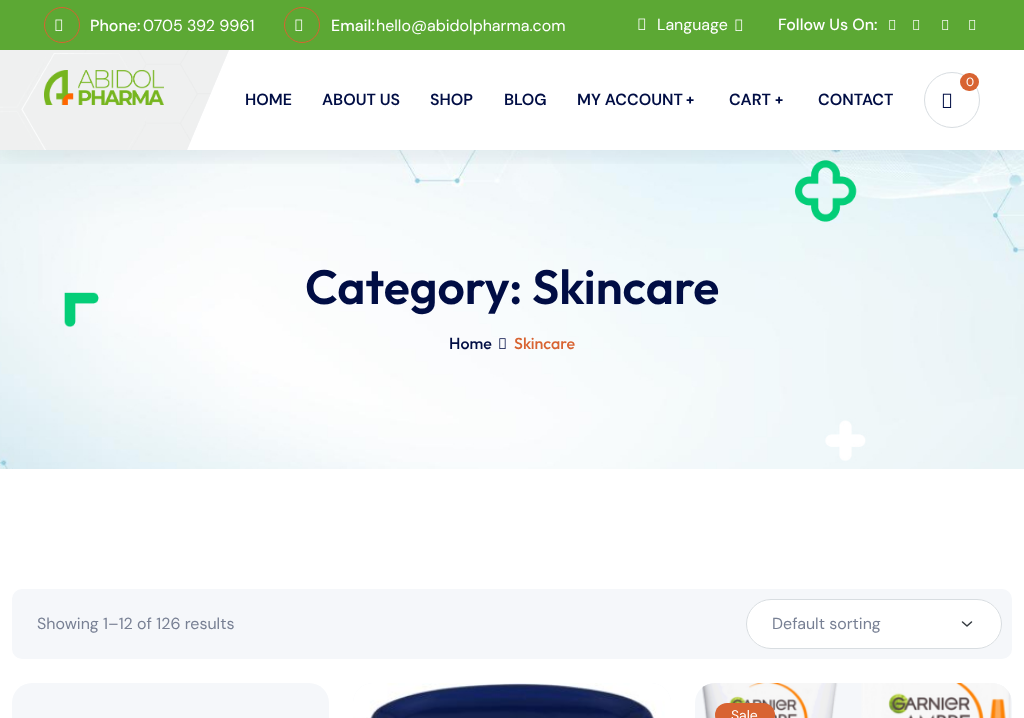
<svg xmlns="http://www.w3.org/2000/svg" width="1024" height="718" viewBox="0 0 1024 718">
  <defs>
    <clipPath id="clip1"><rect x="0" y="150" width="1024" height="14"/></clipPath>
  </defs>
  <rect width="100%" height="100%" fill="rgb(255,255,255)"/>
  <rect x="0" y="0" width="1024" height="50" fill="rgb(92,168,52)"/>
  <image x="0" y="150" width="1024" height="319" href="pic6.png"/>
  <g clip-path="url(#clip1)">
    <rect x="0" y="60" width="1024" height="100" fill="rgba(2,29,53,0.06)" filter="blur(10px)"/>
  </g>
  <circle cx="62" cy="25" r="17.5" fill="none" stroke="rgb(216,99,49)"/>
  <image x="55" y="19" width="8" height="12" href="pic1.png"/>
  <text x="90" y="31" font-family="DM Sans" font-size="16" font-weight="500" fill="rgb(255,255,255)">Phone:</text>
  <text x="143" y="31" font-family="DM Sans" font-size="16" fill="rgb(255,255,255)">0705 392 9961</text>
  <circle cx="302" cy="25" r="17.5" fill="none" stroke="rgb(216,99,49)"/>
  <image x="295" y="19" width="8" height="12" href="pic1.png"/>
  <text x="331" y="31" font-family="DM Sans" font-size="16" font-weight="500" fill="rgb(255,255,255)">Email:</text>
  <text x="376" y="31" font-family="DM Sans" font-size="16" fill="rgb(255,255,255)">hello@abidolpharma.com</text>
  <image x="638" y="18" width="8" height="12" href="pic1.png"/>
  <text x="657" y="30" font-family="DM Sans" font-size="16" fill="rgb(255,255,255)">Language</text>
  <image x="735" y="19" width="8" height="12" href="pic1.png"/>
  <text x="778" y="30" font-family="DM Sans" font-size="16" font-weight="500" fill="rgb(255,255,255)">Follow Us On:</text>
  <image x="889" y="20" width="7" height="10" href="pic2.png"/>
  <image x="913" y="20" width="7" height="10" href="pic2.png"/>
  <image x="942" y="20" width="7" height="10" href="pic2.png"/>
  <image x="969" y="20" width="7" height="10" href="pic2.png"/>
  <path d="M-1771 50V150H187L229 50Z" fill="rgb(245,247,250)"/>
  <image x="0" y="50" width="229" height="100" href="pic3.png"/>
  <image x="44" y="70" width="120" height="35" href="pic4.png"/>
  <circle cx="952" cy="100" r="27.5" fill="none" stroke="rgb(216,221,225)"/>
  <rect x="960" y="73" width="19" height="18" rx="9" fill="rgb(216,99,49)"/>
  <text x="966" y="86" font-family="'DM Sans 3'" font-size="12" fill="rgb(255,255,255)">0</text>
  <image x="942" y="93" width="10" height="15" href="pic5.png"/>
  <g font-family="DM Sans" font-size="16" font-weight="600" fill="rgb(0,13,68)">
    <text x="245" y="105">HOME</text>
    <text x="322" y="105">ABOUT US</text>
    <text x="430" y="105">SHOP</text>
    <text x="504" y="105">BLOG</text>
    <text x="577" y="105">MY ACCOUNT</text>
  </g>
  <text x="686" y="105" font-family="Noto Sans" font-size="14" font-weight="900" fill="rgb(0,13,68)">+</text>
  <text x="729" y="105" font-family="DM Sans" font-size="16" font-weight="600" fill="rgb(0,13,68)">CART</text>
  <text x="775" y="105" font-family="Noto Sans" font-size="14" font-weight="900" fill="rgb(0,13,68)">+</text>
  <text x="818" y="105" font-family="DM Sans" font-size="16" font-weight="600" fill="rgb(0,13,68)">CONTACT</text>
  <text x="305" y="304" font-family="Outfit" font-size="48" font-weight="600" fill="rgb(0,13,68)">Category: Skincare</text>
  <text x="449" y="349" font-family="Outfit" font-size="16" font-weight="500" fill="rgb(0,13,68)">Home</text>
  <image x="499" y="338" width="7" height="11" href="pic7.png"/>
  <text x="514" y="349" font-family="Outfit" font-size="16" font-weight="500" fill="rgb(216,99,49)">Skincare</text>
  <rect x="12" y="589" width="1000" height="70" rx="10" fill="rgb(245,247,250)"/>
  <text x="37" y="629" font-family="DM Sans" font-size="16" fill="rgb(120,128,148)">Showing 1–12 of 126 results</text>
  <rect x="746" y="599" width="256" height="50" rx="25" fill="rgb(255,255,255)"/>
  <path d="M962.5 622L967 626L971.5 622" fill="none" stroke="rgb(52,58,64)" stroke-width="1.5" stroke-linecap="round" stroke-linejoin="round"/>
  <rect x="746.5" y="599.5" width="255" height="49" rx="24.5" fill="none" stroke="rgb(216,221,225)"/>
  <text x="772" y="629" font-family="DM Sans" font-size="16" fill="rgb(120,128,148)">Default sorting</text>
  <rect x="12" y="683" width="317" height="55" rx="20" fill="rgb(245,247,250)"/>
  <rect x="353" y="683" width="318" height="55" rx="20" fill="rgb(245,247,250)"/>
  <image x="353" y="683" width="318" height="35" href="pic8.png"/>
  <rect x="695" y="683" width="317" height="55" rx="20" fill="rgb(245,247,250)"/>
  <image x="702" y="683" width="309" height="35" href="pic9.png"/>
  <rect x="715" y="703" width="60" height="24" rx="12" fill="rgb(216,99,49)"/>
  <text x="731" y="720" font-family="'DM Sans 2'" font-size="14" fill="rgb(255,255,255)">Sale</text>
</svg>
